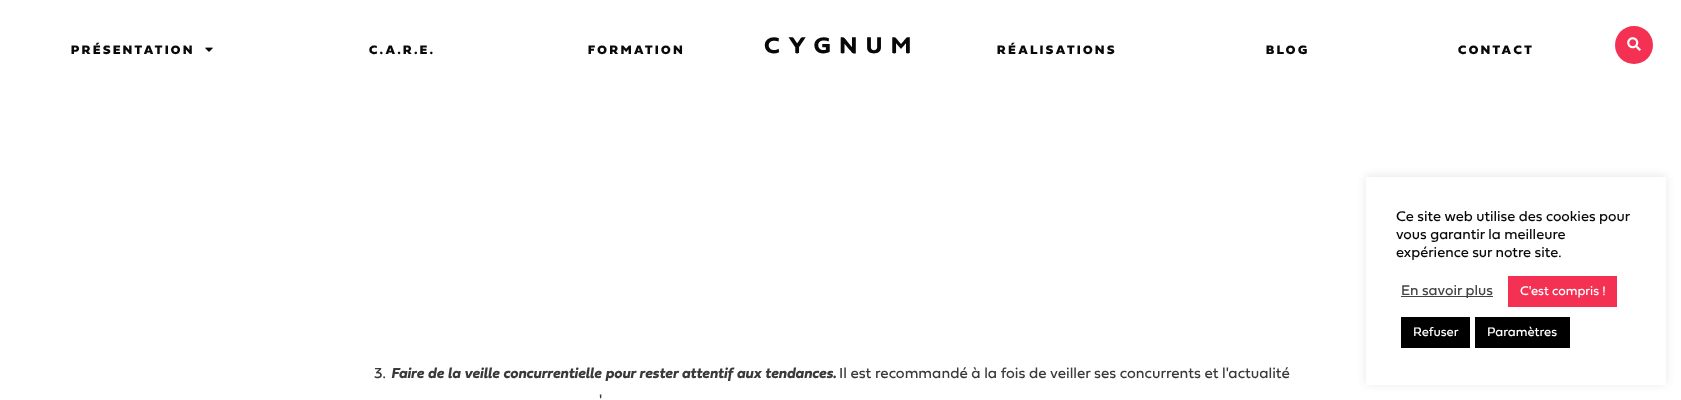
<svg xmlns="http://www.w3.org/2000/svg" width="1681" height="400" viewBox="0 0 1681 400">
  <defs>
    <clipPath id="clip1"><path d="M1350 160H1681V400H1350ZM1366 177H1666V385H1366Z" clip-rule="evenodd"/></clipPath>
  </defs>
  <rect width="100%" height="100%" fill="rgb(255,255,255)"/>
  <text x="71" y="54" font-family="'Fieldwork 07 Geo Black'" font-size="12.75" font-weight="900" letter-spacing="2.5" fill="rgb(9,9,9)">PRÉSENTATION</text>
  <image x="205" y="47" width="8" height="5" href="pic1.png"/>
  <g font-family="'Fieldwork 07 Geo Black'" font-size="12.75" font-weight="900" letter-spacing="2.5" fill="rgb(9,9,9)">
    <text x="369" y="54">C.A.R.E.</text>
    <text x="588" y="54">FORMATION</text>
  </g>
  <image x="764" y="37" width="146" height="17" href="pic2.png"/>
  <g font-family="'Fieldwork 07 Geo Black'" font-size="12.75" font-weight="900" letter-spacing="2.5" fill="rgb(9,9,9)">
    <text x="997" y="54">RÉALISATIONS</text>
    <text x="1266" y="54">BLOG</text>
    <text x="1458" y="54">CONTACT</text>
  </g>
  <circle cx="1634" cy="45" r="19" fill="rgb(244,48,83)"/>
  <image x="1627" y="37" width="14" height="14" href="pic3.png"/>
  <g clip-path="url(#clip1)">
    <rect x="1366" y="176" width="300" height="208" fill="rgba(172,171,171,0.3)" filter="blur(5px)"/>
  </g>
  <g font-family="'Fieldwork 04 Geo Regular'" font-size="14.7" fill="rgb(9,9,9)">
    <text>
      <tspan x="1396" y="221">Ce site web utilise des cookies pour</tspan>
      <tspan x="1396" y="239">vous garantir la meilleure</tspan>
      <tspan x="1396" y="257">expérience sur notre site.</tspan>
    </text>
  </g>
  <rect x="1401" y="296" width="92" height="1" fill="rgb(68,68,68)"/>
  <text x="1401" y="295" font-family="'Fieldwork 04 Geo Regular'" font-size="14.7" fill="rgb(68,68,68)">En savoir plus</text>
  <rect x="1508" y="276" width="109" height="31" fill="rgb(244,48,83)"/>
  <text x="1520" y="295" font-family="'Fieldwork 04 Geo Regular'" font-size="13" fill="rgb(255,255,255)">C'est compris !</text>
  <rect x="1401" y="317" width="69" height="31" fill="rgb(0,0,0)"/>
  <text x="1413" y="336" font-family="'Fieldwork 04 Geo Regular'" font-size="13" fill="rgb(255,255,255)">Refuser</text>
  <rect x="1475" y="317" width="95" height="31" fill="rgb(0,0,0)"/>
  <text x="1487" y="336" font-family="'Fieldwork 04 Geo Regular'" font-size="13" fill="rgb(255,255,255)">Paramètres</text>
  <text x="374" y="378" font-family="'Fieldwork 04 Geo Regular'" font-size="15.2" fill="rgb(58,58,58)">3.</text>
  <text x="391" y="378" font-family="'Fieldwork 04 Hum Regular'" font-size="15.2" font-weight="bold" font-style="italic" fill="rgb(58,58,58)">Faire de la veille concurrentielle pour rester attentif aux tendances.</text>
  <g font-family="'Fieldwork 04 Geo Regular'" font-size="15.2" fill="rgb(58,58,58)">
    <text x="839" y="378">Il est recommandé à la fois de veiller ses concurrents et l'actualité</text>
    <text x="599" y="405">'</text>
  </g>
</svg>
